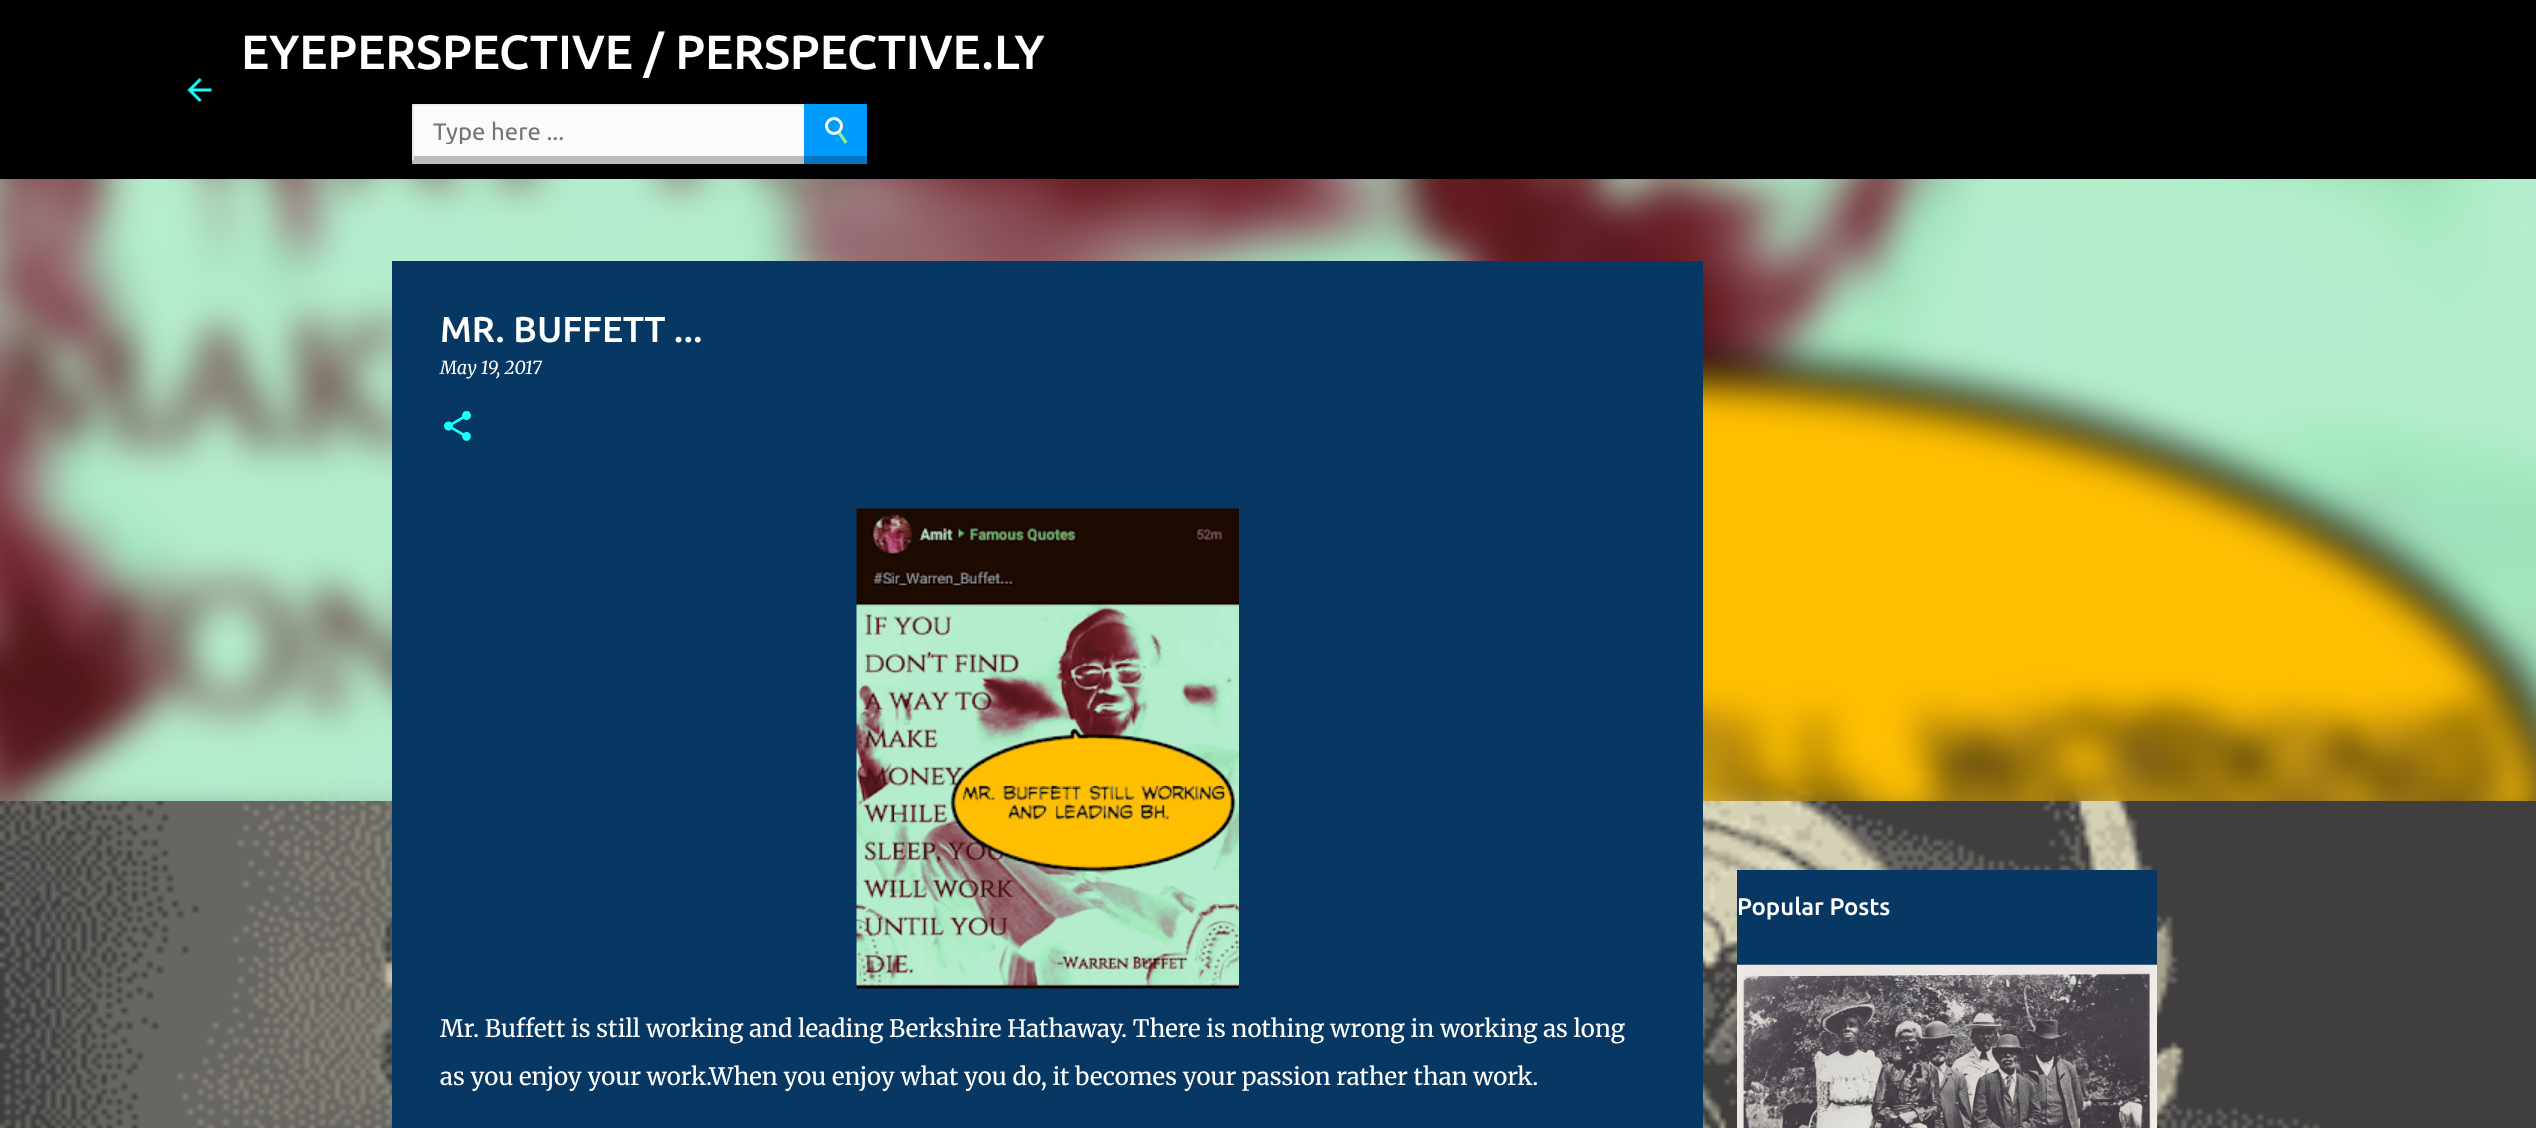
<svg xmlns="http://www.w3.org/2000/svg" width="2536" height="1128" viewBox="0 0 2536 1128">
  <defs>
    <clipPath id="clip1"><rect x="432" y="117" width="369" height="27"/></clipPath>
  </defs>
  <rect width="100%" height="100%" fill="rgb(255,255,255)"/>
  <image x="0" y="776" width="2536" height="352" href="pic1.png"/>
  <rect x="0" y="0" width="2536" height="179" fill="rgb(0,0,0)"/>
  <image x="187" y="78" width="25" height="24" href="pic2.png"/>
  <text x="241" y="69" font-family="Ubuntu" font-size="48" font-weight="500" fill="rgb(255,255,255)">EYEPERSPECTIVE / PERSPECTIVE.LY</text>
  <rect x="413" y="106" width="391" height="54" fill="rgb(251,251,251)"/>
  <rect x="413" y="104" width="391" height="2" fill="rgb(234,234,234)"/>
  <path d="M804 164H412L414 156H804Z" fill="rgb(187,187,187)"/>
  <path d="M412 164V104L414 105V156Z" fill="rgb(234,234,234)"/>
  <g clip-path="url(#clip1)">
    <text x="433" y="140" font-family="Ubuntu" font-size="24" fill="rgb(117,117,117)">Type here ...</text>
  </g>
  <rect x="804" y="104" width="63" height="52" fill="rgb(0,155,255)"/>
  <rect x="804" y="156" width="63" height="8" fill="rgb(2,118,193)"/>
  <path d="M838 134L840.5 132L847.5 142L845 144Z" fill="rgb(144,238,144)"/>
  <circle cx="834" cy="126" r="7.5" fill="none" stroke="rgb(255,255,255)" stroke-width="3"/>
  <image x="0" y="179" width="2536" height="622" href="pic6.png"/>
  <rect x="392" y="261" width="1311" height="867" fill="rgb(7,55,99)"/>
  <text x="440" y="342" font-family="Ubuntu" font-size="36" font-weight="500" fill="rgb(255,255,255)">MR. BUFFETT ...</text>
  <text x="440" y="374" font-family="Merriweather" font-size="18" font-style="italic" fill="rgb(255,255,255)">May 19, 2017</text>
  <image x="444" y="411" width="27" height="30" href="pic3.png"/>
  <image x="856" y="508" width="383" height="481" href="pic4.png"/>
  <g font-family="Merriweather" font-size="24" fill="rgb(255,255,255)">
    <text x="440" y="1037">Mr. Buffett is still working and leading Berkshire Hathaway. There is nothing wrong in working as long</text>
    <text x="440" y="1085">as you enjoy your work.When you enjoy what you do, it becomes your passion rather than work.</text>
  </g>
  <rect x="1737" y="870" width="420" height="95" fill="rgb(7,55,99)"/>
  <text x="1737" y="915" font-family="Ubuntu" font-size="24" font-weight="500" fill="rgb(255,255,255)">Popular Posts</text>
  <image x="1737" y="964" width="420" height="164" href="pic5.png"/>
</svg>
